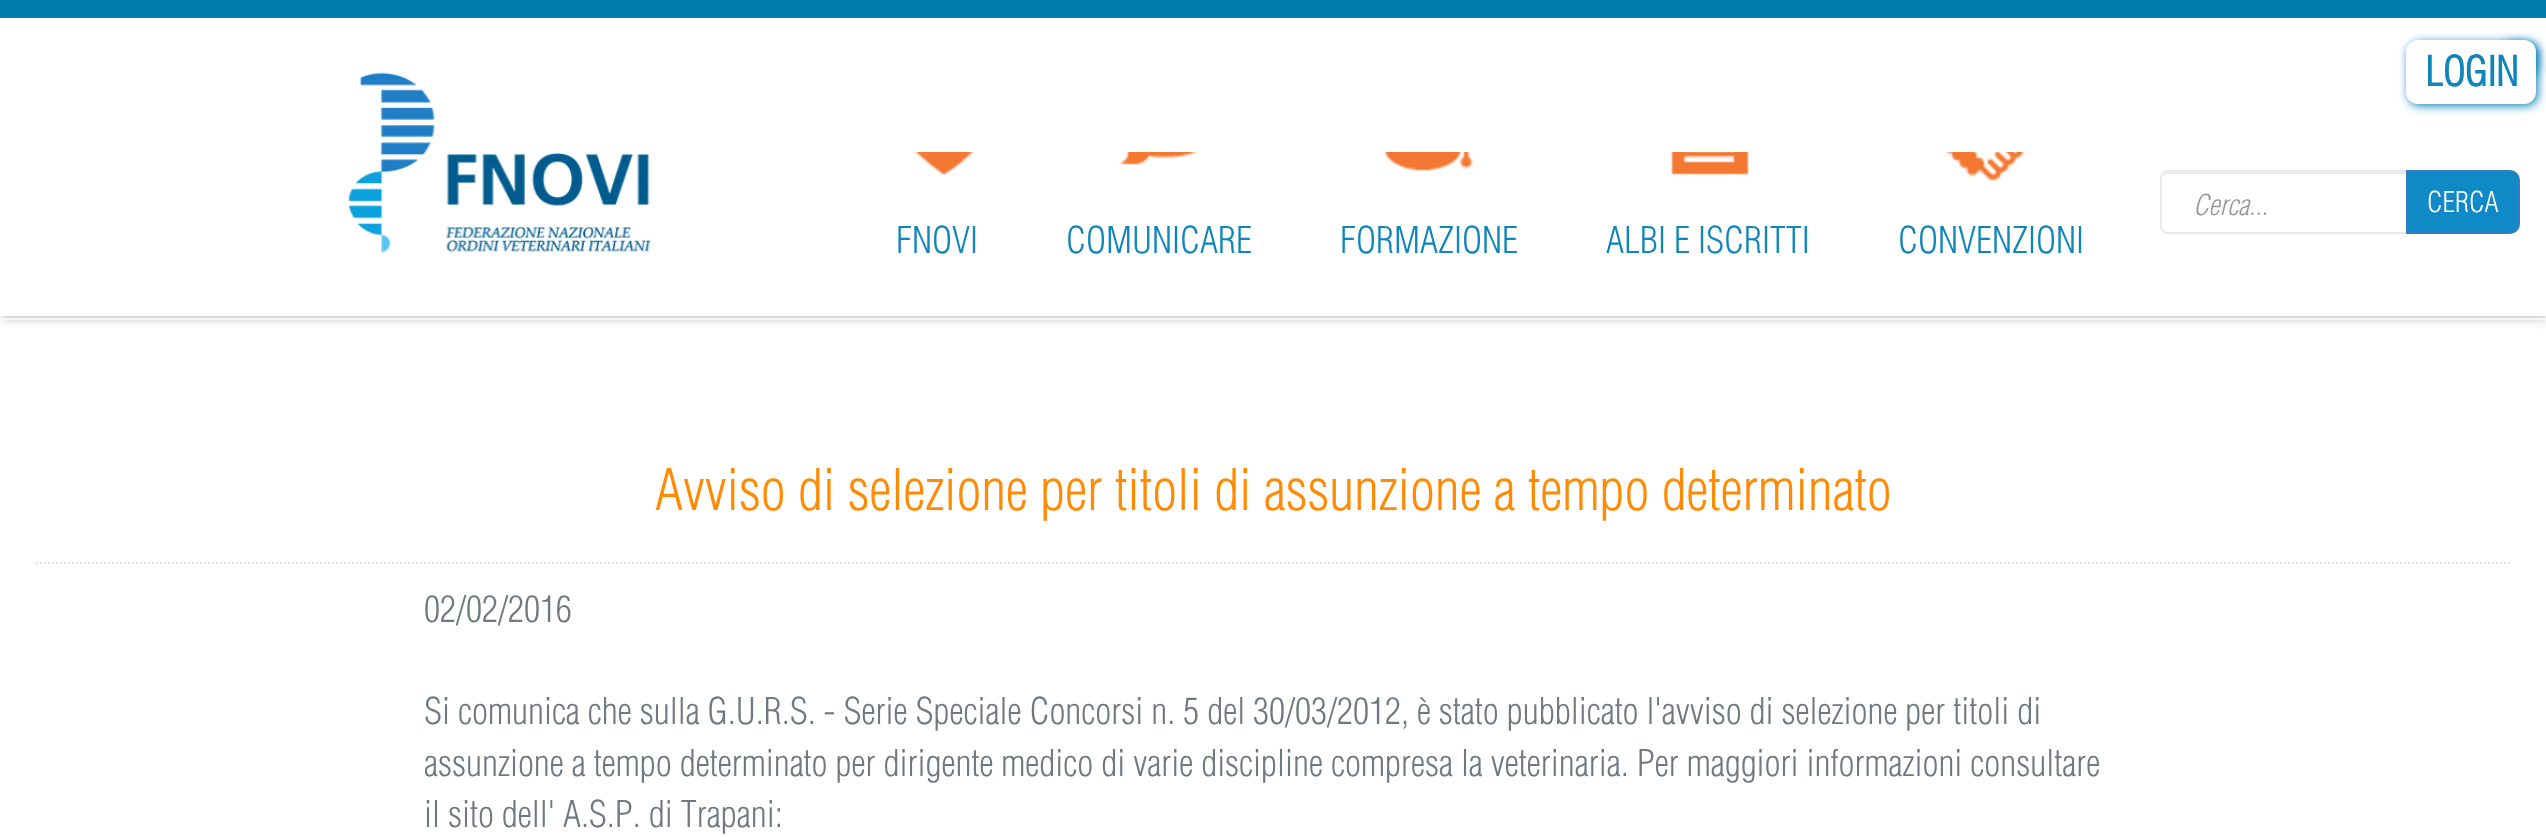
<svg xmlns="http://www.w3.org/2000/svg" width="2546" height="837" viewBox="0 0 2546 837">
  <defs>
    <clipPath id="clip1"><rect x="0" y="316" width="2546" height="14"/></clipPath>
  </defs>
  <rect width="100%" height="100%" fill="rgb(255,255,255)"/>
  <rect x="2502" y="42" width="36" height="36" rx="12" fill="rgb(15,133,186)" filter="blur(5px)"/>
  <rect x="2408" y="42" width="130" height="64" rx="12" fill="rgb(15,133,186)" filter="blur(5px)"/>
  <g clip-path="url(#clip1)">
    <rect x="2" y="4" width="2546" height="316" fill="rgb(204,204,204)" filter="blur(5px)"/>
  </g>
  <rect x="2406" y="40" width="130" height="64" rx="12" fill="rgb(255,255,255)"/>
  <text x="2425" y="86" font-family="Helvetica" font-size="40" font-weight="bold" fill="rgb(15,133,186)">LOGIN</text>
  <path d="M2168 174H2406V172H2168C2165 172 2162 175 2162 178V180C2162 177 2165 174 2168 174Z" fill="rgb(236,236,236)"/>
  <path d="M2168 171H2407V233H2168C2164 233 2161 230 2161 226V178C2161 174 2164 171 2168 171Z" fill="none" stroke="rgb(233,233,233)" stroke-width="2"/>
  <text x="2193" y="215" font-family="Helvetica" font-size="28" font-weight="300" font-style="italic" fill="rgb(153,153,153)">Cerca...</text>
  <path d="M2407 171H2510C2515 171 2519 175 2519 180V224C2519 229 2515 233 2510 233H2407Z" fill="rgb(16,138,199)" stroke="rgb(53,126,189)" stroke-width="2"/>
  <text x="2427" y="212" font-family="Helvetica" font-size="28" font-weight="300" fill="rgb(255,255,255)">CERCA</text>
  <rect x="0" y="0" width="2546" height="18" fill="rgb(0,123,172)"/>
  <image x="348" y="72" width="304" height="181" href="pic1.png"/>
  <image x="913" y="152" width="62" height="23" href="pic2.png"/>
  <text x="896" y="253" font-family="Helvetica" font-size="36" font-weight="300" fill="rgb(15,133,186)">FNOVI</text>
  <image x="1119" y="152" width="81" height="13" href="pic3.png"/>
  <text x="1066" y="253" font-family="Helvetica" font-size="36" font-weight="300" fill="rgb(15,133,186)">COMUNICARE</text>
  <image x="1383" y="152" width="90" height="19" href="pic4.png"/>
  <text x="1340" y="253" font-family="Helvetica" font-size="36" font-weight="300" fill="rgb(15,133,186)">FORMAZIONE</text>
  <image x="1671" y="152" width="78" height="23" href="pic5.png"/>
  <text x="1606" y="253" font-family="Helvetica" font-size="36" font-weight="300" fill="rgb(15,133,186)">ALBI E ISCRITTI</text>
  <image x="1945" y="152" width="80" height="29" href="pic6.png"/>
  <text x="1898" y="253" font-family="Helvetica" font-size="36" font-weight="300" fill="rgb(15,133,186)">CONVENZIONI</text>
  <rect x="0" y="318" width="2546" height="2" fill="rgb(244,244,244)"/>
  <path d="M36 563H2510" fill="none" stroke="rgb(226,226,226)" stroke-width="2" stroke-dasharray="2 2"/>
  <text x="655" y="510" font-family="Helvetica" font-size="56" font-weight="300" fill="rgb(255,139,5)">Avviso di selezione per titoli di assunzione a tempo determinato</text>
  <g font-family="Helvetica" font-size="36" font-weight="300" fill="rgb(112,121,130)">
    <text x="424" y="622">02/02/2016</text>
    <text>
      <tspan x="424" y="724">Si comunica che sulla G.U.R.S. - Serie Speciale Concorsi n. 5 del 30/03/2012, è stato pubblicato l'avviso di selezione per titoli di</tspan>
      <tspan x="424" y="776">assunzione a tempo determinato per dirigente medico di varie discipline compresa la veterinaria. Per maggiori informazioni consultare</tspan>
      <tspan x="424" y="827">il sito dell' A.S.P. di Trapani:</tspan>
    </text>
  </g>
</svg>
